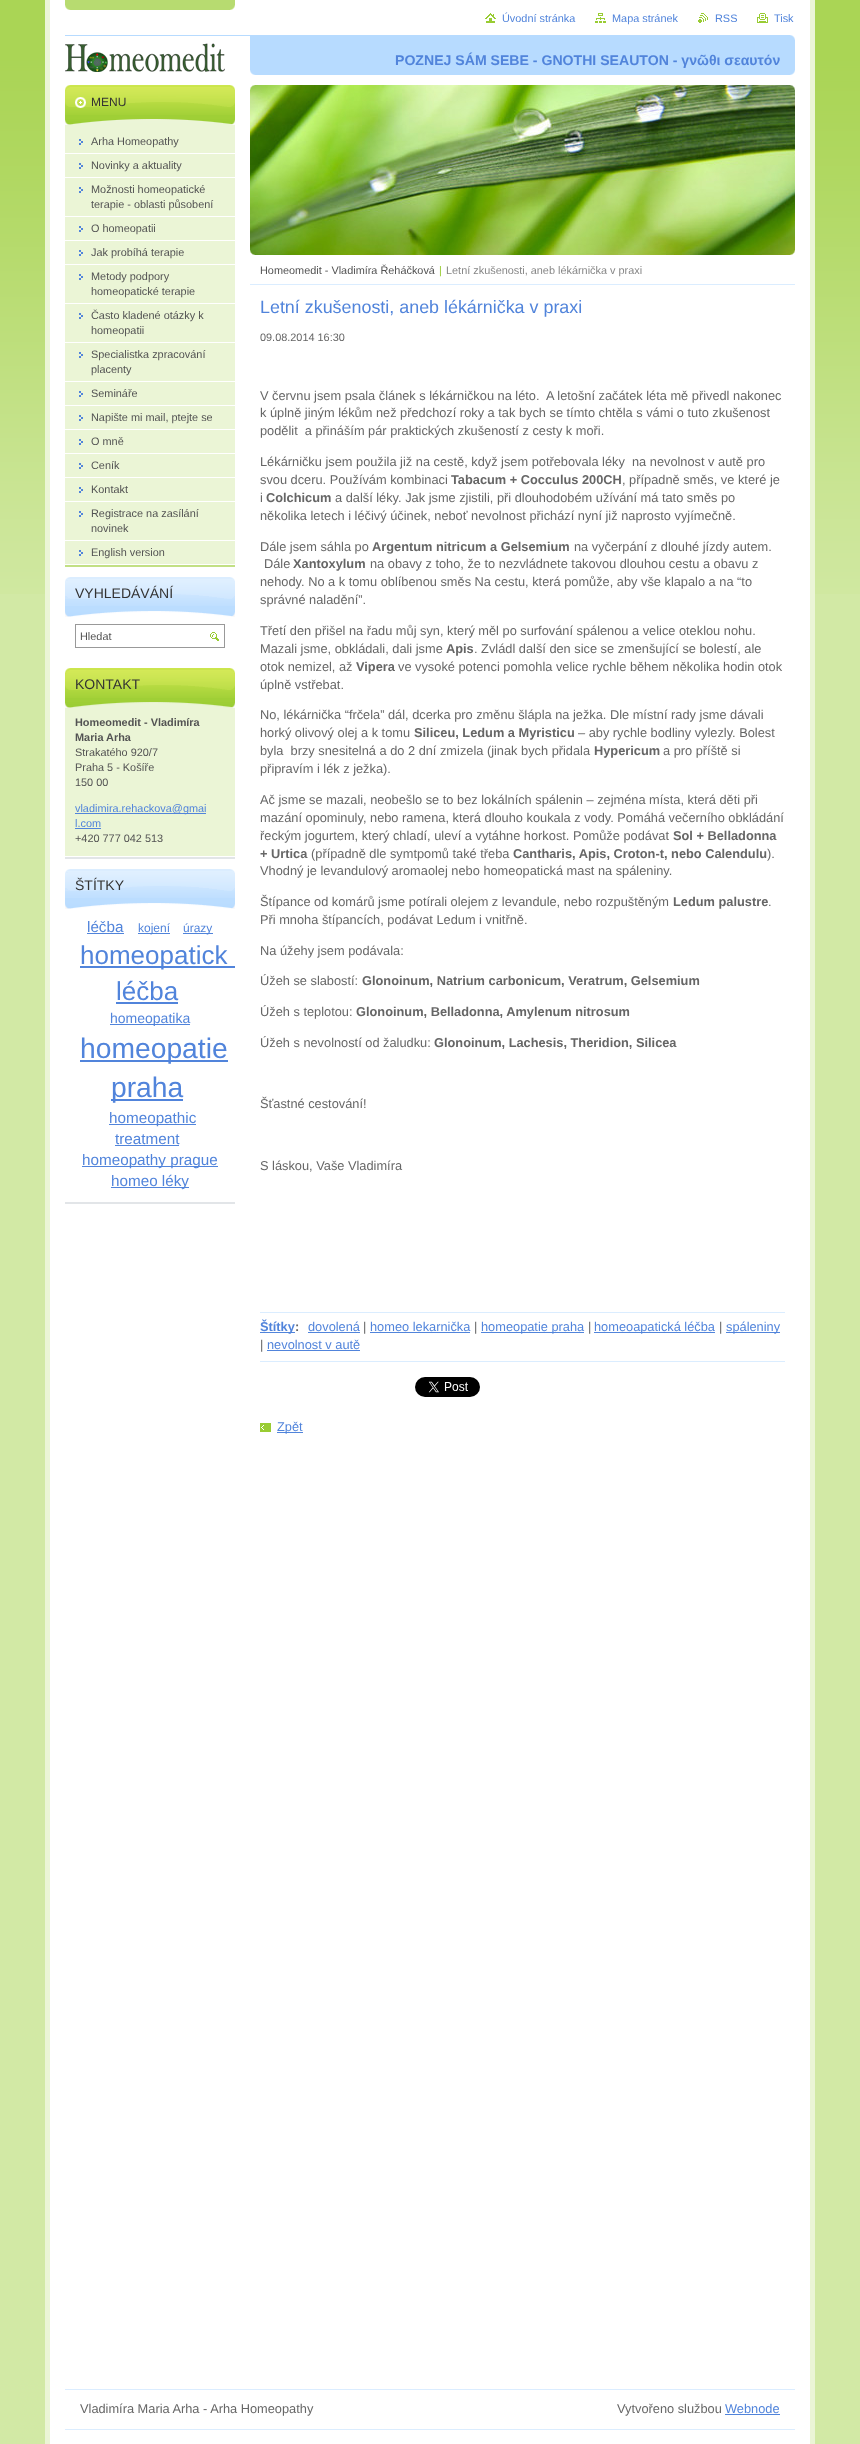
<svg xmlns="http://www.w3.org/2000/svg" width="860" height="2444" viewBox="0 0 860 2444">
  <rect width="100%" height="100%" fill="rgb(210,233,165)"/>
  <image x="0" y="0" width="860" height="594" href="pic1.png"/>
  <rect x="50" y="0" width="760" height="2444" fill="rgb(255,255,255)"/>
  <image x="65" y="0" width="170" height="10" href="pic2.png"/>
  <rect x="810" y="0" width="5" height="2444" fill="rgb(235,245,214)"/>
  <rect x="45" y="0" width="5" height="2444" fill="rgb(235,245,214)"/>
  <image x="485" y="13" width="11" height="10" href="pic3.png"/>
  <text x="502" y="22" font-family="Liberation Sans" font-size="10.9" fill="rgb(81,132,219)">Úvodní stránka</text>
  <image x="595" y="13" width="11" height="10" href="pic4.png"/>
  <text x="612" y="22" font-family="Liberation Sans" font-size="10.9" fill="rgb(81,132,219)">Mapa stránek</text>
  <image x="698" y="13" width="10" height="10" href="pic5.png"/>
  <text x="715" y="22" font-family="Liberation Sans" font-size="10.9" fill="rgb(81,132,219)">RSS</text>
  <image x="757" y="13" width="11" height="10" href="pic6.png"/>
  <text x="774" y="22" font-family="Liberation Sans" font-size="10.9" fill="rgb(81,132,219)">Tisk</text>
  <image x="65" y="35" width="730" height="6" href="pic7.png"/>
  <image x="65" y="43" width="160" height="29" href="pic8.png"/>
  <rect x="250" y="41" width="545" height="29" fill="rgb(183,219,255)"/>
  <image x="250" y="70" width="545" height="5" href="pic9.png"/>
  <text x="395" y="65" font-family="Liberation Sans" font-size="14.1" font-weight="bold" fill="rgb(81,132,219)">POZNEJ SÁM SEBE - GNOTHI SEAUTON - γνῶθι σεαυτόν</text>
  <rect x="65" y="565" width="170" height="2" fill="rgb(194,224,132)"/>
  <rect x="65" y="125" width="170" height="439" fill="rgb(235,245,214)"/>
  <rect x="65" y="115" width="170" height="4" fill="rgb(159,207,54)"/>
  <image x="65" y="85" width="170" height="30" href="pic10.png"/>
  <image x="65" y="119" width="170" height="6" href="pic11.png"/>
  <text x="91" y="106" font-family="Liberation Sans" font-size="12" fill="rgb(51,51,51)">MENU</text>
  <image x="79" y="139" width="4" height="6" href="pic12.png"/>
  <rect x="65" y="153" width="170" height="1" fill="rgb(255,255,255)"/>
  <text x="91" y="145" font-family="Liberation Sans" font-size="10.9" fill="rgb(83,83,83)">Arha Homeopathy</text>
  <image x="79" y="163" width="4" height="6" href="pic12.png"/>
  <rect x="65" y="177" width="170" height="1" fill="rgb(255,255,255)"/>
  <text x="91" y="169" font-family="Liberation Sans" font-size="10.9" fill="rgb(83,83,83)">Novinky a aktuality</text>
  <image x="79" y="187" width="4" height="6" href="pic12.png"/>
  <rect x="65" y="216" width="170" height="1" fill="rgb(255,255,255)"/>
  <g font-family="Liberation Sans" font-size="10.9" fill="rgb(83,83,83)">
    <text>
      <tspan x="91" y="193">Možnosti homeopatické</tspan>
      <tspan x="91" y="208">terapie - oblasti působení</tspan>
    </text>
  </g>
  <image x="79" y="226" width="4" height="6" href="pic12.png"/>
  <rect x="65" y="240" width="170" height="1" fill="rgb(255,255,255)"/>
  <text x="91" y="232" font-family="Liberation Sans" font-size="10.9" fill="rgb(83,83,83)">O homeopatii</text>
  <image x="79" y="250" width="4" height="6" href="pic12.png"/>
  <rect x="65" y="264" width="170" height="1" fill="rgb(255,255,255)"/>
  <text x="91" y="256" font-family="Liberation Sans" font-size="10.9" fill="rgb(83,83,83)">Jak probíhá terapie</text>
  <image x="79" y="274" width="4" height="6" href="pic12.png"/>
  <rect x="65" y="303" width="170" height="1" fill="rgb(255,255,255)"/>
  <g font-family="Liberation Sans" font-size="10.9" fill="rgb(83,83,83)">
    <text>
      <tspan x="91" y="280">Metody podpory</tspan>
      <tspan x="91" y="295">homeopatické terapie</tspan>
    </text>
  </g>
  <image x="79" y="313" width="4" height="6" href="pic12.png"/>
  <rect x="65" y="342" width="170" height="1" fill="rgb(255,255,255)"/>
  <g font-family="Liberation Sans" font-size="10.9" fill="rgb(83,83,83)">
    <text>
      <tspan x="91" y="319">Často kladené otázky k</tspan>
      <tspan x="91" y="334">homeopatii</tspan>
    </text>
  </g>
  <image x="79" y="352" width="4" height="6" href="pic12.png"/>
  <rect x="65" y="381" width="170" height="1" fill="rgb(255,255,255)"/>
  <g font-family="Liberation Sans" font-size="10.9" fill="rgb(83,83,83)">
    <text>
      <tspan x="91" y="358">Specialistka zpracování</tspan>
      <tspan x="91" y="373">placenty</tspan>
    </text>
  </g>
  <image x="79" y="391" width="4" height="6" href="pic12.png"/>
  <rect x="65" y="405" width="170" height="1" fill="rgb(255,255,255)"/>
  <text x="91" y="397" font-family="Liberation Sans" font-size="10.9" fill="rgb(83,83,83)">Semináře</text>
  <image x="79" y="415" width="4" height="6" href="pic12.png"/>
  <rect x="65" y="429" width="170" height="1" fill="rgb(255,255,255)"/>
  <text x="91" y="421" font-family="Liberation Sans" font-size="10.9" fill="rgb(83,83,83)">Napište mi mail, ptejte se</text>
  <image x="79" y="439" width="4" height="6" href="pic12.png"/>
  <rect x="65" y="453" width="170" height="1" fill="rgb(255,255,255)"/>
  <text x="91" y="445" font-family="Liberation Sans" font-size="10.9" fill="rgb(83,83,83)">O mně</text>
  <image x="79" y="463" width="4" height="6" href="pic12.png"/>
  <rect x="65" y="477" width="170" height="1" fill="rgb(255,255,255)"/>
  <text x="91" y="469" font-family="Liberation Sans" font-size="10.9" fill="rgb(83,83,83)">Ceník</text>
  <image x="79" y="487" width="4" height="6" href="pic12.png"/>
  <rect x="65" y="501" width="170" height="1" fill="rgb(255,255,255)"/>
  <text x="91" y="493" font-family="Liberation Sans" font-size="10.9" fill="rgb(83,83,83)">Kontakt</text>
  <image x="79" y="511" width="4" height="6" href="pic12.png"/>
  <rect x="65" y="540" width="170" height="1" fill="rgb(255,255,255)"/>
  <g font-family="Liberation Sans" font-size="10.9" fill="rgb(83,83,83)">
    <text>
      <tspan x="91" y="517">Registrace na zasílání</tspan>
      <tspan x="91" y="532">novinek</tspan>
    </text>
  </g>
  <image x="79" y="550" width="4" height="6" href="pic12.png"/>
  <text x="91" y="556" font-family="Liberation Sans" font-size="10.9" fill="rgb(83,83,83)">English version</text>
  <rect x="65" y="606" width="170" height="6" fill="rgb(187,221,255)"/>
  <image x="65" y="577" width="170" height="29" href="pic13.png"/>
  <image x="65" y="611" width="170" height="6" href="pic14.png"/>
  <text x="75" y="598" font-family="Liberation Sans" font-size="14" fill="rgb(51,51,51)">VYHLEDÁVÁNÍ</text>
  <rect x="75.5" y="624.5" width="149" height="23" fill="none" stroke="rgb(153,153,153)"/>
  <text x="80" y="640" font-family="Liberation Sans" font-size="10.9" fill="rgb(83,83,83)">Hledat</text>
  <image x="210" y="632" width="9" height="9" href="pic15.png"/>
  <rect x="65" y="857" width="170" height="2" fill="rgb(226,229,232)"/>
  <rect x="65" y="708" width="170" height="148" fill="rgb(235,245,214)"/>
  <rect x="65" y="698" width="170" height="5" fill="rgb(159,207,54)"/>
  <image x="65" y="668" width="170" height="30" href="pic16.png"/>
  <image x="65" y="702" width="170" height="6" href="pic17.png"/>
  <text x="75" y="689" font-family="Liberation Sans" font-size="14" fill="rgb(51,51,51)">KONTAKT</text>
  <g font-family="Liberation Sans" font-size="10.9" font-weight="bold" fill="rgb(83,83,83)">
    <text>
      <tspan x="75" y="726">Homeomedit - Vladimíra</tspan>
      <tspan x="75" y="741">Maria Arha</tspan>
    </text>
  </g>
  <g font-family="Liberation Sans" font-size="10.9" fill="rgb(83,83,83)">
    <text>
      <tspan x="75" y="756">Strakatého 920/7</tspan>
      <tspan x="75" y="771">Praha 5 - Košíře</tspan>
      <tspan x="75" y="786">150 00</tspan>
    </text>
  </g>
  <rect x="75" y="813" width="131" height="1" fill="rgb(81,132,219)"/>
  <g font-family="Liberation Sans" font-size="10.9" fill="rgb(81,132,219)">
    <text>
      <tspan x="75" y="812">vladimira.rehackova@gmai</tspan>
      <tspan x="75" y="827">l.com</tspan>
    </text>
  </g>
  <rect x="75" y="828" width="26" height="1" fill="rgb(81,132,219)"/>
  <text x="75" y="842" font-family="Liberation Sans" font-size="10.9" fill="rgb(83,83,83)">+420 777 042 513</text>
  <rect x="65" y="1202" width="170" height="2" fill="rgb(226,229,232)"/>
  <rect x="65" y="898" width="170" height="6" fill="rgb(187,221,255)"/>
  <image x="65" y="869" width="170" height="29" href="pic13.png"/>
  <image x="65" y="903" width="170" height="6" href="pic14.png"/>
  <text x="75" y="890" font-family="Liberation Sans" font-size="14" fill="rgb(51,51,51)">ŠTÍTKY</text>
  <text x="87" y="932" font-family="Liberation Sans" font-size="15.25" fill="rgb(81,132,219)">léčba</text>
  <rect x="87" y="933" width="37" height="1" fill="rgb(81,132,219)"/>
  <rect x="138" y="933" width="32" height="1" fill="rgb(81,132,219)"/>
  <text x="138" y="932" font-family="Liberation Sans" font-size="12" fill="rgb(81,132,219)">kojení</text>
  <rect x="183" y="933" width="30" height="1" fill="rgb(81,132,219)"/>
  <text x="183" y="932" font-family="Liberation Sans" font-size="12" fill="rgb(81,132,219)">úrazy</text>
  <rect x="80" y="966" width="155" height="2" fill="rgb(81,132,219)"/>
  <g font-family="Liberation Sans" font-size="26" fill="rgb(81,132,219)">
    <text x="80" y="964">homeopatick</text>
    <text x="116" y="1000">léčba</text>
  </g>
  <rect x="116" y="1002" width="62" height="2" fill="rgb(81,132,219)"/>
  <rect x="110" y="1024" width="80" height="1" fill="rgb(81,132,219)"/>
  <text x="110" y="1023" font-family="Liberation Sans" font-size="14" fill="rgb(81,132,219)">homeopatika</text>
  <rect x="80" y="1060" width="148" height="2" fill="rgb(81,132,219)"/>
  <text x="80" y="1058" font-family="Liberation Sans" font-size="28.25" fill="rgb(81,132,219)">homeopatie</text>
  <rect x="111" y="1099" width="72" height="2" fill="rgb(81,132,219)"/>
  <text x="111" y="1097" font-family="Liberation Sans" font-size="28.25" fill="rgb(81,132,219)">praha</text>
  <rect x="109" y="1124" width="87" height="1" fill="rgb(81,132,219)"/>
  <g font-family="Liberation Sans" font-size="15.25" fill="rgb(81,132,219)">
    <text x="109" y="1123">homeopathic</text>
    <text x="115" y="1144">treatment</text>
  </g>
  <rect x="115" y="1145" width="64" height="1" fill="rgb(81,132,219)"/>
  <rect x="82" y="1166" width="136" height="1" fill="rgb(81,132,219)"/>
  <text x="82" y="1165" font-family="Liberation Sans" font-size="15.25" fill="rgb(81,132,219)">homeopathy prague</text>
  <rect x="111" y="1187" width="78" height="1" fill="rgb(81,132,219)"/>
  <text x="111" y="1186" font-family="Liberation Sans" font-size="15.25" fill="rgb(81,132,219)">homeo léky</text>
  <image x="250" y="85" width="545" height="170" href="pic18.png"/>
  <image x="250" y="85" width="545" height="170" href="pic19.png"/>
  <rect x="250" y="284" width="545" height="1" fill="rgb(219,237,255)"/>
  <text x="260" y="274" font-family="Liberation Sans" font-size="10.9" fill="rgb(83,83,83)">Homeomedit - Vladimíra Řeháčková</text>
  <text x="439" y="274" font-family="Liberation Sans" font-size="10.9" fill="rgb(153,204,51)">|</text>
  <text x="446" y="274" font-family="Liberation Sans" font-size="10.9" fill="rgb(135,135,135)">Letní zkušenosti, aneb lékárnička v praxi</text>
  <text x="260" y="313" font-family="Liberation Sans" font-size="17.9" fill="rgb(81,132,219)">Letní zkušenosti, aneb lékárnička v praxi</text>
  <text x="260" y="341" font-family="Liberation Sans" font-size="10.9" fill="rgb(102,102,102)">09.08.2014 16:30</text>
  <g font-family="Liberation Sans" font-size="12.8" fill="rgb(102,102,102)">
    <text xml:space="preserve"><tspan x="260" y="400">V červnu jsem psala článek s lékárničkou na léto.  A letošní začátek léta mě přivedl nakonec</tspan><tspan x="260" y="417">k úplně jiným lékům než předchozí roky a tak bych se tímto chtěla s vámi o tuto zkušenost</tspan><tspan x="260" y="435">podělit  a přináším pár praktických zkušeností z cesty k moři.</tspan></text>
    <text xml:space="preserve"><tspan x="260" y="466">Lékárničku jsem použila již na cestě, když jsem potřebovala léky  na nevolnost v autě pro</tspan><tspan x="260" y="484">svou dceru. Používám kombinaci</tspan></text>
  </g>
  <text x="451" y="484" font-family="Liberation Sans" font-size="12.8" font-weight="bold" fill="rgb(102,102,102)">Tabacum + Cocculus 200CH</text>
  <g font-family="Liberation Sans" font-size="12.8" fill="rgb(102,102,102)">
    <text x="622" y="484">, případně směs, ve které je</text>
    <text x="260" y="502">i</text>
  </g>
  <text x="266" y="502" font-family="Liberation Sans" font-size="12.8" font-weight="bold" fill="rgb(102,102,102)">Colchicum</text>
  <g font-family="Liberation Sans" font-size="12.8" fill="rgb(102,102,102)">
    <text x="335" y="502">a další léky. Jak jsme zjistili, při dlouhodobém užívání má tato směs po</text>
    <text x="260" y="520">několika letech i léčivý účinek, neboť nevolnost přichází nyní již naprosto vyjímečně.</text>
    <text x="260" y="551">Dále jsem sáhla po</text>
  </g>
  <text x="372" y="551" font-family="Liberation Sans" font-size="12.8" font-weight="bold" fill="rgb(102,102,102)">Argentum nitricum a Gelsemium</text>
  <g font-family="Liberation Sans" font-size="12.8" fill="rgb(102,102,102)">
    <text x="574" y="551">na vyčerpání z dlouhé jízdy autem.</text>
    <text x="264" y="568">Dále</text>
  </g>
  <text x="293" y="568" font-family="Liberation Sans" font-size="12.8" font-weight="bold" fill="rgb(102,102,102)">Xantoxylum</text>
  <g font-family="Liberation Sans" font-size="12.8" fill="rgb(102,102,102)">
    <text x="370" y="568">na obavy z toho, že to nezvládnete takovou dlouhou cestu a obavu z</text>
    <text>
      <tspan x="260" y="586">nehody. No a k tomu oblíbenou směs Na cestu, která pomůže, aby vše klapalo a na “to</tspan>
      <tspan x="260" y="604">správné naladění”.</tspan>
    </text>
    <text>
      <tspan x="260" y="635">Třetí den přišel na řadu můj syn, který měl po surfování spálenou a velice oteklou nohu.</tspan>
      <tspan x="260" y="653">Mazali jsme, obkládali, dali jsme</tspan>
    </text>
  </g>
  <text x="446" y="653" font-family="Liberation Sans" font-size="12.8" font-weight="bold" fill="rgb(102,102,102)">Apis</text>
  <g font-family="Liberation Sans" font-size="12.8" fill="rgb(102,102,102)">
    <text x="474" y="653">. Zvládl další den sice se zmenšující se bolestí, ale</text>
    <text x="260" y="671">otok nemizel, až</text>
  </g>
  <text x="356" y="671" font-family="Liberation Sans" font-size="12.8" font-weight="bold" fill="rgb(102,102,102)">Vipera</text>
  <g font-family="Liberation Sans" font-size="12.8" fill="rgb(102,102,102)">
    <text x="398" y="671">ve vysoké potenci pomohla velice rychle během několika hodin otok</text>
    <text x="260" y="689">úplně vstřebat.</text>
    <text>
      <tspan x="260" y="719">No, lékárnička “frčela” dál, dcerka pro změnu šlápla na ježka. Dle místní rady jsme dávali</tspan>
      <tspan x="260" y="737">horký olivový olej a k tomu</tspan>
    </text>
  </g>
  <text x="414" y="737" font-family="Liberation Sans" font-size="12.8" font-weight="bold" fill="rgb(102,102,102)">Siliceu, Ledum a Myristicu</text>
  <g font-family="Liberation Sans" font-size="12.8" fill="rgb(102,102,102)">
    <text x="578" y="737">– aby rychle bodliny vylezly. Bolest</text>
    <text x="260" y="755" xml:space="preserve">byla  brzy snesitelná a do 2 dní zmizela (jinak bych přidala</text>
  </g>
  <text x="594" y="755" font-family="Liberation Sans" font-size="12.8" font-weight="bold" fill="rgb(102,102,102)">Hypericum</text>
  <g font-family="Liberation Sans" font-size="12.8" fill="rgb(102,102,102)">
    <text x="663" y="755">a pro příště si</text>
    <text x="260" y="773">připravím i lék z ježka).</text>
    <text>
      <tspan x="260" y="804">Ač jsme se mazali, neobešlo se to bez lokálních spálenin – zejména místa, která děti při</tspan>
      <tspan x="260" y="822">mazání opominuly, nebo ramena, která dlouho koukala z vody. Pomáhá večerního obkládání</tspan>
      <tspan x="260" y="840">řeckým jogurtem, který chladí, uleví a vytáhne horkost. Pomůže podávat</tspan>
    </text>
  </g>
  <g font-family="Liberation Sans" font-size="12.8" font-weight="bold" fill="rgb(102,102,102)">
    <text x="673" y="840">Sol + Belladonna</text>
    <text x="260" y="858">+ Urtica</text>
  </g>
  <text x="311" y="858" font-family="Liberation Sans" font-size="12.8" fill="rgb(102,102,102)">(případně dle symtpomů také třeba</text>
  <text x="513" y="858" font-family="Liberation Sans" font-size="12.8" font-weight="bold" fill="rgb(102,102,102)">Cantharis, Apis, Croton-t, nebo Calendulu</text>
  <g font-family="Liberation Sans" font-size="12.8" fill="rgb(102,102,102)">
    <text x="767" y="858">).</text>
    <text x="260" y="875">Vhodný je levandulový aromaolej nebo homeopatická mast na spáleniny.</text>
    <text x="260" y="906">Štípance od komárů jsme potírali olejem z levandule, nebo rozpuštěným</text>
  </g>
  <text x="673" y="906" font-family="Liberation Sans" font-size="12.8" font-weight="bold" fill="rgb(102,102,102)">Ledum palustre</text>
  <g font-family="Liberation Sans" font-size="12.8" fill="rgb(102,102,102)">
    <text x="768" y="906">.</text>
    <text x="260" y="924">Při mnoha štípancích, podávat Ledum i vnitřně.</text>
    <text x="260" y="955">Na úžehy jsem podávala:</text>
    <text x="260" y="985">Úžeh se slabostí:</text>
  </g>
  <text x="362" y="985" font-family="Liberation Sans" font-size="12.8" font-weight="bold" fill="rgb(102,102,102)">Glonoinum, Natrium carbonicum, Veratrum, Gelsemium</text>
  <text x="260" y="1016" font-family="Liberation Sans" font-size="12.8" fill="rgb(102,102,102)">Úžeh s teplotou:</text>
  <text x="356" y="1016" font-family="Liberation Sans" font-size="12.8" font-weight="bold" fill="rgb(102,102,102)">Glonoinum, Belladonna, Amylenum nitrosum</text>
  <text x="260" y="1047" font-family="Liberation Sans" font-size="12.8" fill="rgb(102,102,102)">Úžeh s nevolností od žaludku:</text>
  <text x="434" y="1047" font-family="Liberation Sans" font-size="12.8" font-weight="bold" fill="rgb(102,102,102)">Glonoinum, Lachesis, Theridion, Silicea</text>
  <g font-family="Liberation Sans" font-size="12.8" fill="rgb(102,102,102)">
    <text x="260" y="1108">Šťastné cestování!</text>
    <text x="260" y="1170">S láskou, Vaše Vladimíra</text>
  </g>
  <rect x="260" y="1312" width="525" height="1" fill="rgb(219,237,255)"/>
  <rect x="260" y="1361" width="525" height="1" fill="rgb(219,237,255)"/>
  <rect x="260" y="1332" width="35" height="1" fill="rgb(81,132,219)"/>
  <text x="260" y="1331" font-family="Liberation Sans" font-size="12.8" font-weight="bold" fill="rgb(81,132,219)">Štítky</text>
  <text x="295" y="1331" font-family="Liberation Sans" font-size="12.8" font-weight="bold" fill="rgb(102,102,102)">:</text>
  <text x="308" y="1331" font-family="Liberation Sans" font-size="12.8" fill="rgb(81,132,219)">dovolená</text>
  <rect x="308" y="1332" width="52" height="1" fill="rgb(81,132,219)"/>
  <text x="363" y="1331" font-family="Liberation Sans" font-size="12.8" fill="rgb(102,102,102)">|</text>
  <text x="370" y="1331" font-family="Liberation Sans" font-size="12.8" fill="rgb(81,132,219)">homeo lekarnička</text>
  <rect x="370" y="1332" width="100" height="1" fill="rgb(81,132,219)"/>
  <text x="474" y="1331" font-family="Liberation Sans" font-size="12.8" fill="rgb(102,102,102)">|</text>
  <rect x="481" y="1332" width="103" height="1" fill="rgb(81,132,219)"/>
  <text x="481" y="1331" font-family="Liberation Sans" font-size="12.8" fill="rgb(81,132,219)">homeopatie praha</text>
  <text x="588" y="1331" font-family="Liberation Sans" font-size="12.8" fill="rgb(102,102,102)">|</text>
  <rect x="594" y="1332" width="121" height="1" fill="rgb(81,132,219)"/>
  <text x="594" y="1331" font-family="Liberation Sans" font-size="12.8" fill="rgb(81,132,219)">homeoapatická léčba</text>
  <text x="719" y="1331" font-family="Liberation Sans" font-size="12.8" fill="rgb(102,102,102)">|</text>
  <rect x="726" y="1332" width="54" height="1" fill="rgb(81,132,219)"/>
  <text x="726" y="1331" font-family="Liberation Sans" font-size="12.8" fill="rgb(81,132,219)">spáleniny</text>
  <text x="260" y="1349" font-family="Liberation Sans" font-size="12.8" fill="rgb(102,102,102)">|</text>
  <text x="267" y="1349" font-family="Liberation Sans" font-size="12.8" fill="rgb(81,132,219)">nevolnost v autě</text>
  <rect x="267" y="1350" width="93" height="1" fill="rgb(81,132,219)"/>
  <image x="415" y="1377" width="65" height="20" href="pic20.png"/>
  <image x="260" y="1423" width="11" height="9" href="pic21.png"/>
  <rect x="277" y="1432" width="26" height="1" fill="rgb(81,132,219)"/>
  <text x="277" y="1431" font-family="Liberation Sans" font-size="12.8" fill="rgb(81,132,219)">Zpět</text>
  <rect x="65" y="2389" width="730" height="1" fill="rgb(219,237,255)"/>
  <rect x="65" y="2429" width="730" height="1" fill="rgb(219,237,255)"/>
  <g font-family="Liberation Sans" font-size="12.8" fill="rgb(102,102,102)">
    <text x="80" y="2413">Vladimíra Maria Arha - Arha Homeopathy</text>
    <text x="617" y="2413">Vytvořeno službou</text>
  </g>
  <text x="725" y="2413" font-family="Liberation Sans" font-size="12.8" fill="rgb(81,132,219)">Webnode</text>
  <rect x="725" y="2414" width="55" height="1" fill="rgb(81,132,219)"/>
</svg>
